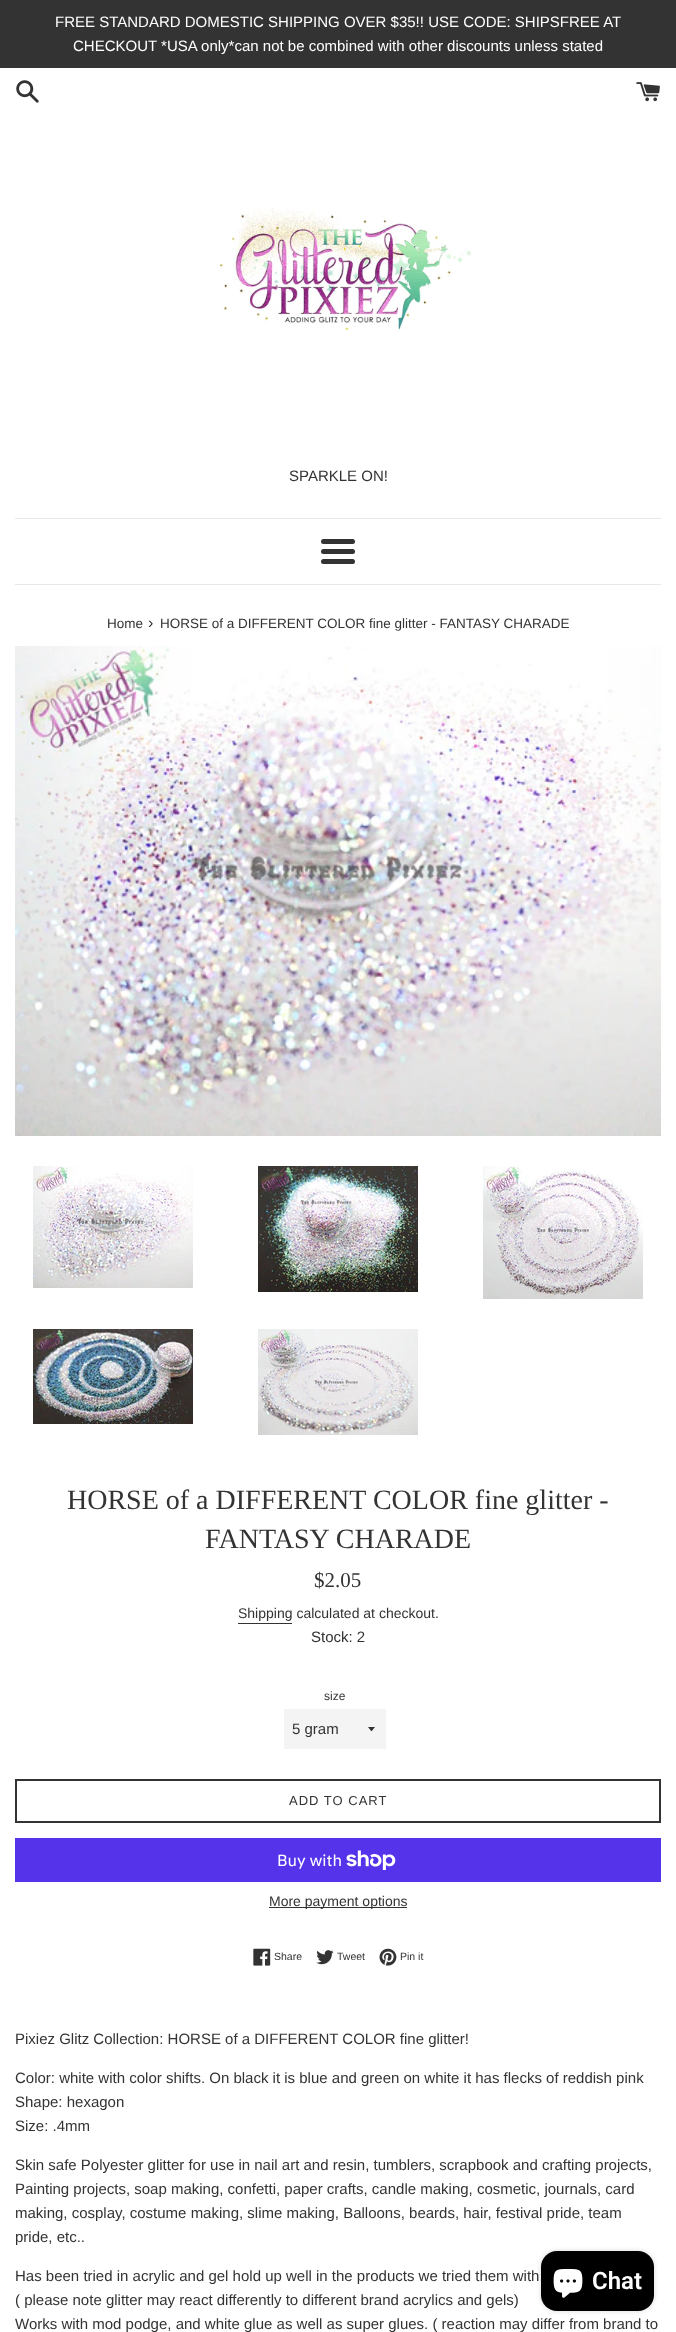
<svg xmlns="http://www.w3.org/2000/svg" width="676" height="2332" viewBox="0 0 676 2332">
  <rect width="100%" height="100%" fill="rgb(255,255,255)"/>
  <rect x="0" y="0" width="676" height="68" fill="rgb(51,51,51)"/>
  <g font-family="Liberation Sans" font-size="15" fill="rgb(255,255,255)">
    <text x="55" y="27">FREE STANDARD DOMESTIC SHIPPING OVER $35!! USE CODE: SHIPSFREE AT</text>
    <text x="73" y="51">CHECKOUT *USA only*can not be combined with other discounts unless stated</text>
  </g>
  <image x="16" y="80" width="23" height="23" href="pic1.png"/>
  <image x="636" y="82" width="24" height="20" href="pic2.png"/>
  <image x="219" y="208" width="253" height="123" href="pic3.png"/>
  <text x="289" y="481" font-family="Liberation Sans" font-size="15" fill="rgb(51,51,51)">SPARKLE ON!</text>
  <rect x="15" y="518" width="646" height="1" fill="rgb(232,232,232)"/>
  <rect x="321" y="539" width="34" height="5" rx="2.5" fill="rgb(51,51,51)"/>
  <rect x="321" y="549" width="34" height="5" rx="2.5" fill="rgb(51,51,51)"/>
  <rect x="321" y="559" width="34" height="5" rx="2.5" fill="rgb(51,51,51)"/>
  <rect x="15" y="584" width="646" height="1" fill="rgb(232,232,232)"/>
  <text x="107" y="628" font-family="Liberation Sans" font-size="13.5" fill="rgb(51,51,51)">Home</text>
  <text x="148" y="628" font-family="Liberation Sans" font-size="16" fill="rgb(51,51,51)">›</text>
  <text x="160" y="628" font-family="Liberation Sans" font-size="13.5" fill="rgb(51,51,51)">HORSE of a DIFFERENT COLOR fine glitter - FANTASY CHARADE</text>
  <image x="15" y="646" width="646" height="490" href="pic4.png"/>
  <image x="33" y="1166" width="160" height="122" href="pic5.png"/>
  <image x="258" y="1166" width="160" height="126" href="pic6.png"/>
  <image x="483" y="1166" width="160" height="133" href="pic7.png"/>
  <image x="33" y="1329" width="160" height="95" href="pic8.png"/>
  <image x="258" y="1329" width="160" height="106" href="pic9.png"/>
  <g font-family="Liberation Serif" font-size="28" fill="rgb(51,51,51)">
    <text x="67" y="1509">HORSE of a DIFFERENT COLOR fine glitter -</text>
    <text x="205" y="1548">FANTASY CHARADE</text>
  </g>
  <text x="314" y="1587" font-family="Liberation Serif" font-size="21" fill="rgb(51,51,51)">$2.05</text>
  <text x="238" y="1618" font-family="Liberation Sans" font-size="14" fill="rgb(51,51,51)">Shipping calculated at checkout.</text>
  <rect x="238" y="1623" width="54" height="1" fill="rgb(51,51,51)"/>
  <text x="311" y="1642" font-family="Liberation Sans" font-size="15" fill="rgb(51,51,51)">Stock: 2</text>
  <text x="324" y="1700" font-family="Liberation Sans" font-size="12" fill="rgb(51,51,51)">size</text>
  <rect x="284" y="1709" width="102" height="40" fill="rgb(244,244,244)"/>
  <path d="M368 1727C372.5 1732.5 370.5 1732.5 375 1727Z" fill="rgb(51,51,51)"/>
  <text x="292" y="1734" font-family="Liberation Sans" font-size="15" fill="rgb(51,51,51)">5 gram</text>
  <rect x="16" y="1780" width="644" height="42" fill="none" stroke="rgb(51,51,51)" stroke-width="2"/>
  <text x="289" y="1805" font-family="Liberation Sans" font-size="13" letter-spacing="1" fill="rgb(51,51,51)">ADD TO CART</text>
  <rect x="15" y="1838" width="646" height="44" fill="rgb(84,51,235)"/>
  <text x="277" y="1866" font-family="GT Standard" font-size="16" fill="rgb(255,255,255)">Buy with</text>
  <image x="346" y="1850" width="50" height="20" href="pic10.png"/>
  <rect x="269" y="1907" width="138" height="1" fill="rgb(51,51,51)"/>
  <text x="269" y="1906" font-family="Liberation Sans" font-size="14" fill="rgb(51,51,51)">More payment options</text>
  <image x="253" y="1948" width="18" height="18" href="pic11.png"/>
  <text x="274" y="1960" font-family="Liberation Sans" font-size="10.5" fill="rgb(51,51,51)">Share</text>
  <image x="316" y="1950" width="18" height="15" href="pic12.png"/>
  <text x="337" y="1960" font-family="Liberation Sans" font-size="10.5" fill="rgb(51,51,51)">Tweet</text>
  <image x="379" y="1948" width="18" height="18" href="pic13.png"/>
  <text x="400" y="1960" font-family="Liberation Sans" font-size="10.5" fill="rgb(51,51,51)">Pin it</text>
  <g font-family="Liberation Sans" font-size="15" fill="rgb(51,51,51)">
    <text x="15" y="2044">Pixiez Glitz Collection: HORSE of a DIFFERENT COLOR fine glitter!</text>
    <text>
      <tspan x="15" y="2083">Color: white with color shifts. On black it is blue and green on white it has flecks of reddish pink</tspan>
      <tspan x="15" y="2107">Shape: hexagon</tspan>
      <tspan x="15" y="2131">Size: .4mm</tspan>
    </text>
    <text>
      <tspan x="15" y="2170">Skin safe Polyester glitter for use in nail art and resin, tumblers, scrapbook and crafting projects,</tspan>
      <tspan x="15" y="2194">Painting projects, soap making, confetti, paper crafts, candle making, cosmetic, journals, card</tspan>
      <tspan x="15" y="2218">making, cosplay, costume making, slime making, Balloons, beards, hair, festival pride, team</tspan>
      <tspan x="15" y="2242">pride, etc..</tspan>
    </text>
    <text>
      <tspan x="15" y="2281">Has been tried in acrylic and gel hold up well in the products we tried them with</tspan>
      <tspan x="15" y="2305">( please note glitter may react differently to different brand acrylics and gels)</tspan>
      <tspan x="15" y="2329">Works with mod podge, and white glue as well as super glues. ( reaction may differ from brand to</tspan>
    </text>
  </g>
  <rect x="541" y="2251" width="113" height="60" rx="16" fill="rgba(0,0,0,0.15)" filter="blur(2.5px)"/>
  <rect x="541" y="2251" width="113" height="60" rx="16" fill="rgb(0,0,0)"/>
  <image x="553" y="2269" width="30" height="29" href="pic14.png"/>
  <text x="592" y="2289" font-family="Roboto" font-size="24" font-weight="600" fill="rgb(255,255,255)">Chat</text>
</svg>
